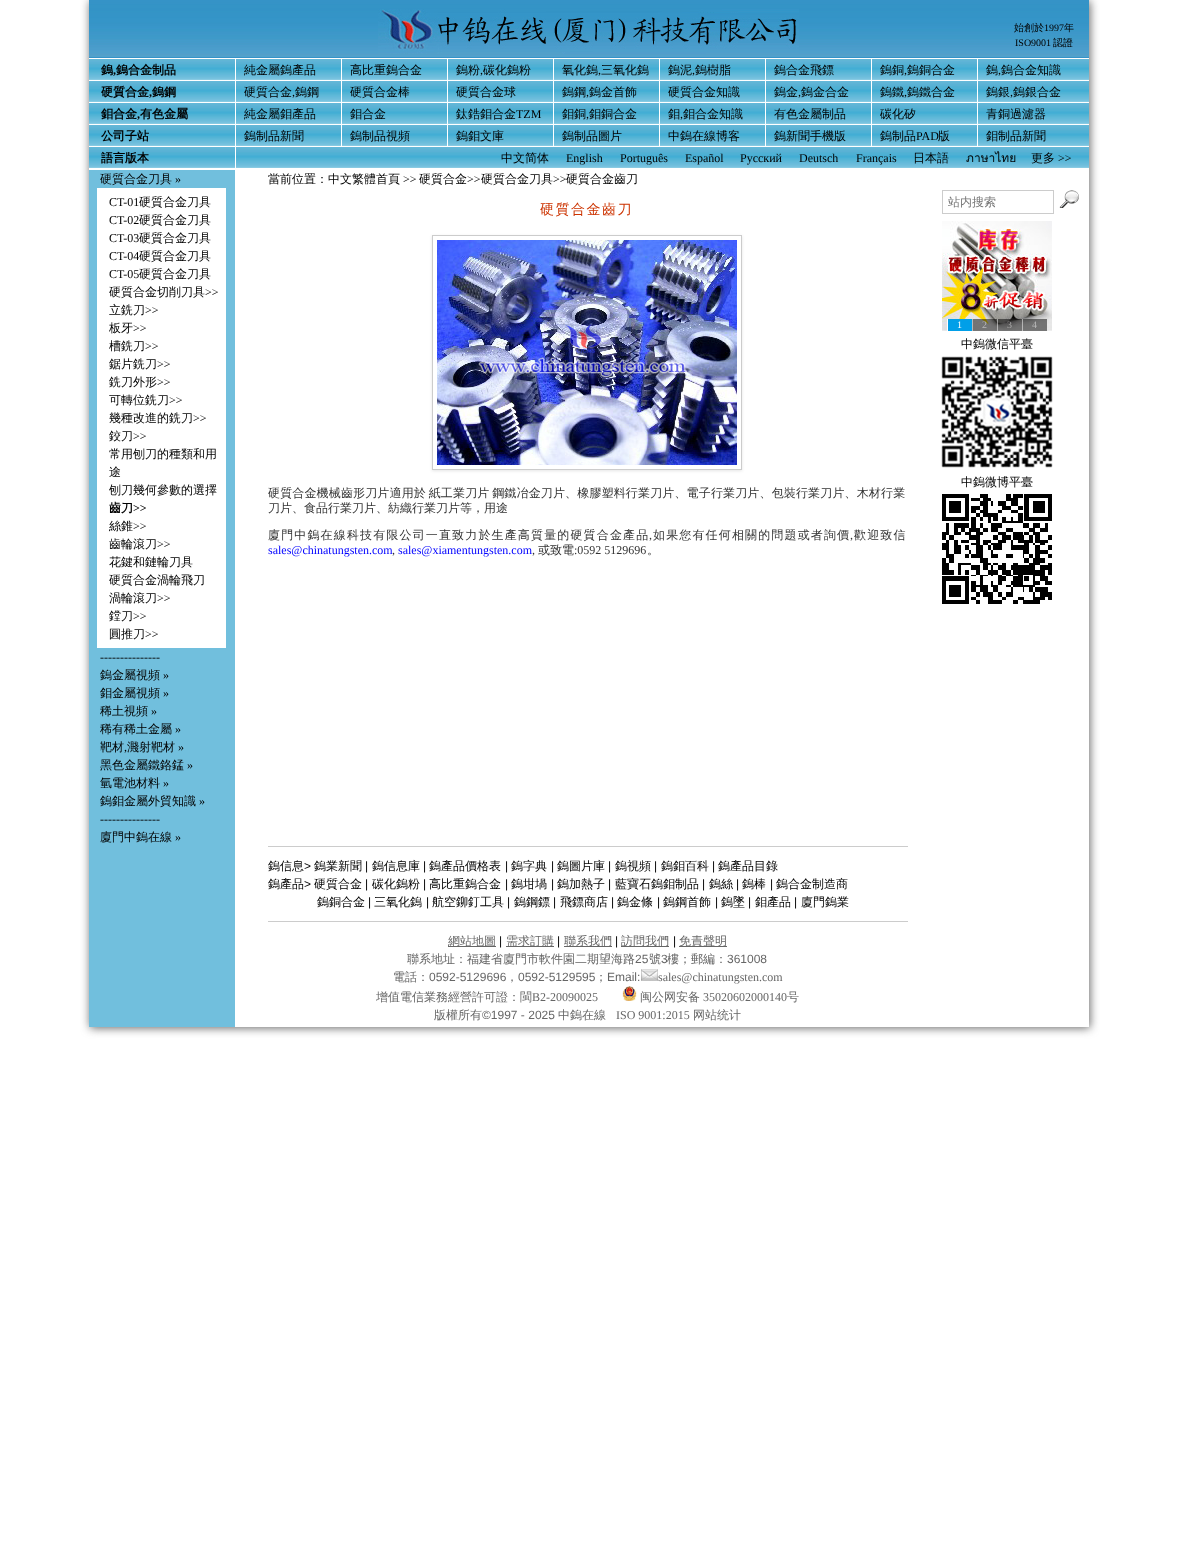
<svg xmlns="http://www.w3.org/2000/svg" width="1177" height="1551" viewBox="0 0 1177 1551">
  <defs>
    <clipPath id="clip1"><path d="M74 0H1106V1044H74ZM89 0H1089V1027H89Z" clip-rule="evenodd"/></clipPath>
    <clipPath id="clip2"><path d="M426 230H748V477H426ZM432 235H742V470H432Z" clip-rule="evenodd"/></clipPath>
  </defs>
  <rect width="100%" height="100%" fill="rgb(255,255,255)"/>
  <g clip-path="url(#clip1)">
    <rect x="90" y="1" width="1000" height="1027" fill="rgb(102,102,102)" filter="blur(5px)"/>
  </g>
  <image x="89" y="0" width="1000" height="58" href="pic1.png"/>
  <image x="378" y="9" width="421" height="45" href="pic2.png"/>
  <text x="1014" y="31" font-family="WenQuanYi Zen Hei" font-size="10" font-weight="500" fill="rgb(0,0,0)">始創於</text>
  <text x="1044" y="31" font-family="Liberation Serif" font-size="10" fill="rgb(0,0,0)">1997</text>
  <text x="1064" y="31" font-family="WenQuanYi Zen Hei" font-size="10" font-weight="500" fill="rgb(0,0,0)">年</text>
  <text x="1015" y="46" font-family="Liberation Serif" font-size="10" fill="rgb(0,0,0)">ISO9001</text>
  <text x="1053" y="46" font-family="WenQuanYi Zen Hei" font-size="10" font-weight="500" fill="rgb(0,0,0)">認證</text>
  <image x="89" y="58" width="1000" height="111" href="pic3.png"/>
  <text x="101" y="74" font-family="WenQuanYi Zen Hei" font-size="12" font-weight="bold" fill="rgb(0,0,0)">鎢</text>
  <text x="113" y="74" font-family="Liberation Serif" font-size="12" font-weight="bold" fill="rgb(0,0,0)">,</text>
  <text x="116" y="74" font-family="WenQuanYi Zen Hei" font-size="12" font-weight="bold" fill="rgb(0,0,0)">鎢合金制品</text>
  <rect x="235" y="59" width="1" height="110" fill="rgb(255,255,255)"/>
  <text x="244" y="74" font-family="WenQuanYi Zen Hei" font-size="12" font-weight="500" fill="rgb(0,0,0)">純金屬鎢產品</text>
  <rect x="341" y="59" width="1" height="88" fill="rgb(255,255,255)"/>
  <text x="350" y="74" font-family="WenQuanYi Zen Hei" font-size="12" font-weight="500" fill="rgb(0,0,0)">高比重鎢合金</text>
  <rect x="447" y="59" width="1" height="88" fill="rgb(255,255,255)"/>
  <text x="456" y="74" font-family="WenQuanYi Zen Hei" font-size="12" font-weight="500" fill="rgb(0,0,0)">鎢粉</text>
  <text x="480" y="74" font-family="Liberation Serif" font-size="12" fill="rgb(0,0,0)">,</text>
  <text x="483" y="74" font-family="WenQuanYi Zen Hei" font-size="12" font-weight="500" fill="rgb(0,0,0)">碳化鎢粉</text>
  <rect x="553" y="59" width="1" height="88" fill="rgb(255,255,255)"/>
  <text x="562" y="74" font-family="WenQuanYi Zen Hei" font-size="12" font-weight="500" fill="rgb(0,0,0)">氧化鎢</text>
  <text x="598" y="74" font-family="Liberation Serif" font-size="12" fill="rgb(0,0,0)">,</text>
  <text x="601" y="74" font-family="WenQuanYi Zen Hei" font-size="12" font-weight="500" fill="rgb(0,0,0)">三氧化鎢</text>
  <rect x="659" y="59" width="1" height="88" fill="rgb(255,255,255)"/>
  <text x="668" y="74" font-family="WenQuanYi Zen Hei" font-size="12" font-weight="500" fill="rgb(0,0,0)">鎢泥</text>
  <text x="692" y="74" font-family="Liberation Serif" font-size="12" fill="rgb(0,0,0)">,</text>
  <text x="695" y="74" font-family="WenQuanYi Zen Hei" font-size="12" font-weight="500" fill="rgb(0,0,0)">鎢樹脂</text>
  <rect x="765" y="59" width="1" height="88" fill="rgb(255,255,255)"/>
  <text x="774" y="74" font-family="WenQuanYi Zen Hei" font-size="12" font-weight="500" fill="rgb(0,0,0)">鎢合金飛鏢</text>
  <rect x="871" y="59" width="1" height="88" fill="rgb(255,255,255)"/>
  <text x="880" y="74" font-family="WenQuanYi Zen Hei" font-size="12" font-weight="500" fill="rgb(0,0,0)">鎢銅</text>
  <text x="904" y="74" font-family="Liberation Serif" font-size="12" fill="rgb(0,0,0)">,</text>
  <text x="907" y="74" font-family="WenQuanYi Zen Hei" font-size="12" font-weight="500" fill="rgb(0,0,0)">鎢銅合金</text>
  <rect x="977" y="59" width="1" height="88" fill="rgb(255,255,255)"/>
  <text x="986" y="74" font-family="WenQuanYi Zen Hei" font-size="12" font-weight="500" fill="rgb(0,0,0)">鎢</text>
  <text x="998" y="74" font-family="Liberation Serif" font-size="12" fill="rgb(0,0,0)">,</text>
  <text x="1001" y="74" font-family="WenQuanYi Zen Hei" font-size="12" font-weight="500" fill="rgb(0,0,0)">鎢合金知識</text>
  <text x="101" y="96" font-family="WenQuanYi Zen Hei" font-size="12" font-weight="bold" fill="rgb(0,0,0)">硬質合金</text>
  <text x="149" y="96" font-family="Liberation Serif" font-size="12" font-weight="bold" fill="rgb(0,0,0)">,</text>
  <text x="152" y="96" font-family="WenQuanYi Zen Hei" font-size="12" font-weight="bold" fill="rgb(0,0,0)">鎢鋼</text>
  <text x="244" y="96" font-family="WenQuanYi Zen Hei" font-size="12" font-weight="500" fill="rgb(0,0,0)">硬質合金</text>
  <text x="292" y="96" font-family="Liberation Serif" font-size="12" fill="rgb(0,0,0)">,</text>
  <g font-family="WenQuanYi Zen Hei" font-size="12" font-weight="500" fill="rgb(0,0,0)">
    <text x="295" y="96">鎢鋼</text>
    <text x="350" y="96">硬質合金棒</text>
    <text x="456" y="96">硬質合金球</text>
    <text x="562" y="96">鎢鋼</text>
  </g>
  <text x="586" y="96" font-family="Liberation Serif" font-size="12" fill="rgb(0,0,0)">,</text>
  <g font-family="WenQuanYi Zen Hei" font-size="12" font-weight="500" fill="rgb(0,0,0)">
    <text x="589" y="96">鎢金首飾</text>
    <text x="668" y="96">硬質合金知識</text>
    <text x="774" y="96">鎢金</text>
  </g>
  <text x="798" y="96" font-family="Liberation Serif" font-size="12" fill="rgb(0,0,0)">,</text>
  <g font-family="WenQuanYi Zen Hei" font-size="12" font-weight="500" fill="rgb(0,0,0)">
    <text x="801" y="96">鎢金合金</text>
    <text x="880" y="96">鎢鐵</text>
  </g>
  <text x="904" y="96" font-family="Liberation Serif" font-size="12" fill="rgb(0,0,0)">,</text>
  <g font-family="WenQuanYi Zen Hei" font-size="12" font-weight="500" fill="rgb(0,0,0)">
    <text x="907" y="96">鎢鐵合金</text>
    <text x="986" y="96">鎢銀</text>
  </g>
  <text x="1010" y="96" font-family="Liberation Serif" font-size="12" fill="rgb(0,0,0)">,</text>
  <text x="1013" y="96" font-family="WenQuanYi Zen Hei" font-size="12" font-weight="500" fill="rgb(0,0,0)">鎢銀合金</text>
  <text x="101" y="118" font-family="WenQuanYi Zen Hei" font-size="12" font-weight="bold" fill="rgb(0,0,0)">鉬合金</text>
  <text x="137" y="118" font-family="Liberation Serif" font-size="12" font-weight="bold" fill="rgb(0,0,0)">,</text>
  <text x="140" y="118" font-family="WenQuanYi Zen Hei" font-size="12" font-weight="bold" fill="rgb(0,0,0)">有色金屬</text>
  <g font-family="WenQuanYi Zen Hei" font-size="12" font-weight="500" fill="rgb(0,0,0)">
    <text x="244" y="118">純金屬鉬產品</text>
    <text x="350" y="118">鉬合金</text>
    <text x="456" y="118">鈦鋯鉬合金</text>
  </g>
  <text x="516" y="118" font-family="Liberation Serif" font-size="12" fill="rgb(0,0,0)">TZM</text>
  <text x="562" y="118" font-family="WenQuanYi Zen Hei" font-size="12" font-weight="500" fill="rgb(0,0,0)">鉬銅</text>
  <text x="586" y="118" font-family="Liberation Serif" font-size="12" fill="rgb(0,0,0)">,</text>
  <g font-family="WenQuanYi Zen Hei" font-size="12" font-weight="500" fill="rgb(0,0,0)">
    <text x="589" y="118">鉬銅合金</text>
    <text x="668" y="118">鉬</text>
  </g>
  <text x="680" y="118" font-family="Liberation Serif" font-size="12" fill="rgb(0,0,0)">,</text>
  <g font-family="WenQuanYi Zen Hei" font-size="12" font-weight="500" fill="rgb(0,0,0)">
    <text x="683" y="118">鉬合金知識</text>
    <text x="774" y="118">有色金屬制品</text>
    <text x="880" y="118">碳化矽</text>
    <text x="986" y="118">青銅過濾器</text>
  </g>
  <text x="101" y="140" font-family="WenQuanYi Zen Hei" font-size="12" font-weight="bold" fill="rgb(0,0,0)">公司子站</text>
  <g font-family="WenQuanYi Zen Hei" font-size="12" font-weight="500" fill="rgb(0,0,0)">
    <text x="244" y="140">鎢制品新聞</text>
    <text x="350" y="140">鎢制品視頻</text>
    <text x="456" y="140">鎢鉬文庫</text>
    <text x="562" y="140">鎢制品圖片</text>
    <text x="668" y="140">中鎢在線博客</text>
    <text x="774" y="140">鎢新聞手機版</text>
    <text x="880" y="140">鎢制品</text>
  </g>
  <text x="916" y="140" font-family="Liberation Serif" font-size="12" fill="rgb(0,0,0)">PAD</text>
  <g font-family="WenQuanYi Zen Hei" font-size="12" font-weight="500" fill="rgb(0,0,0)">
    <text x="938" y="140">版</text>
    <text x="986" y="140">鉬制品新聞</text>
  </g>
  <text x="101" y="162" font-family="WenQuanYi Zen Hei" font-size="12" font-weight="bold" fill="rgb(0,0,0)">語言版本</text>
  <text x="501" y="162" font-family="WenQuanYi Zen Hei" font-size="12" font-weight="500" fill="rgb(0,0,0)">中文简体</text>
  <g font-family="Liberation Serif" font-size="12" fill="rgb(0,0,0)">
    <text x="566" y="162">English</text>
    <text x="620" y="162">Português</text>
    <text x="685" y="162">Español</text>
    <text x="740" y="162">Русский</text>
    <text x="799" y="162">Deutsch</text>
    <text x="856" y="162">Français</text>
  </g>
  <text x="913" y="162" font-family="WenQuanYi Zen Hei" font-size="12" font-weight="500" fill="rgb(0,0,0)">日本語</text>
  <text x="966" y="162" font-family="Loma" font-size="12" fill="rgb(0,0,0)">ภาษาไทย</text>
  <text x="1031" y="162" font-family="WenQuanYi Zen Hei" font-size="12" font-weight="500" fill="rgb(0,0,0)">更多</text>
  <text x="1058" y="162" font-family="Liberation Serif" font-size="12" fill="rgb(0,0,0)">&gt;&gt;</text>
  <rect x="89" y="170" width="146" height="857" fill="rgb(113,191,221)"/>
  <text x="100" y="183" font-family="WenQuanYi Zen Hei" font-size="12" font-weight="500" fill="rgb(0,0,0)">硬質合金刀具</text>
  <text x="175" y="183" font-family="Liberation Serif" font-size="12" fill="rgb(0,0,0)">»</text>
  <rect x="97" y="188" width="129" height="460" fill="rgb(255,255,255)"/>
  <text x="109" y="206" font-family="Liberation Serif" font-size="12" fill="rgb(0,0,0)">CT-01</text>
  <text x="139" y="206" font-family="WenQuanYi Zen Hei" font-size="12" font-weight="500" fill="rgb(0,0,0)">硬質合金刀具</text>
  <text x="109" y="224" font-family="Liberation Serif" font-size="12" fill="rgb(0,0,0)">CT-02</text>
  <text x="139" y="224" font-family="WenQuanYi Zen Hei" font-size="12" font-weight="500" fill="rgb(0,0,0)">硬質合金刀具</text>
  <text x="109" y="242" font-family="Liberation Serif" font-size="12" fill="rgb(0,0,0)">CT-03</text>
  <text x="139" y="242" font-family="WenQuanYi Zen Hei" font-size="12" font-weight="500" fill="rgb(0,0,0)">硬質合金刀具</text>
  <text x="109" y="260" font-family="Liberation Serif" font-size="12" fill="rgb(0,0,0)">CT-04</text>
  <text x="139" y="260" font-family="WenQuanYi Zen Hei" font-size="12" font-weight="500" fill="rgb(0,0,0)">硬質合金刀具</text>
  <text x="109" y="278" font-family="Liberation Serif" font-size="12" fill="rgb(0,0,0)">CT-05</text>
  <g font-family="WenQuanYi Zen Hei" font-size="12" font-weight="500" fill="rgb(0,0,0)">
    <text x="139" y="278">硬質合金刀具</text>
    <text x="109" y="296">硬質合金切削刀具</text>
  </g>
  <text x="205" y="296" font-family="Liberation Serif" font-size="12" fill="rgb(0,0,0)">&gt;&gt;</text>
  <text x="109" y="314" font-family="WenQuanYi Zen Hei" font-size="12" font-weight="500" fill="rgb(0,0,0)">立銑刀</text>
  <text x="145" y="314" font-family="Liberation Serif" font-size="12" fill="rgb(0,0,0)">&gt;&gt;</text>
  <text x="109" y="332" font-family="WenQuanYi Zen Hei" font-size="12" font-weight="500" fill="rgb(0,0,0)">板牙</text>
  <text x="133" y="332" font-family="Liberation Serif" font-size="12" fill="rgb(0,0,0)">&gt;&gt;</text>
  <text x="109" y="350" font-family="WenQuanYi Zen Hei" font-size="12" font-weight="500" fill="rgb(0,0,0)">槽銑刀</text>
  <text x="145" y="350" font-family="Liberation Serif" font-size="12" fill="rgb(0,0,0)">&gt;&gt;</text>
  <text x="109" y="368" font-family="WenQuanYi Zen Hei" font-size="12" font-weight="500" fill="rgb(0,0,0)">鋸片銑刀</text>
  <text x="157" y="368" font-family="Liberation Serif" font-size="12" fill="rgb(0,0,0)">&gt;&gt;</text>
  <text x="109" y="386" font-family="WenQuanYi Zen Hei" font-size="12" font-weight="500" fill="rgb(0,0,0)">銑刀外形</text>
  <text x="157" y="386" font-family="Liberation Serif" font-size="12" fill="rgb(0,0,0)">&gt;&gt;</text>
  <text x="109" y="404" font-family="WenQuanYi Zen Hei" font-size="12" font-weight="500" fill="rgb(0,0,0)">可轉位銑刀</text>
  <text x="169" y="404" font-family="Liberation Serif" font-size="12" fill="rgb(0,0,0)">&gt;&gt;</text>
  <text x="109" y="422" font-family="WenQuanYi Zen Hei" font-size="12" font-weight="500" fill="rgb(0,0,0)">幾種改進的銑刀</text>
  <text x="193" y="422" font-family="Liberation Serif" font-size="12" fill="rgb(0,0,0)">&gt;&gt;</text>
  <text x="109" y="440" font-family="WenQuanYi Zen Hei" font-size="12" font-weight="500" fill="rgb(0,0,0)">鉸刀</text>
  <text x="133" y="440" font-family="Liberation Serif" font-size="12" fill="rgb(0,0,0)">&gt;&gt;</text>
  <g font-family="WenQuanYi Zen Hei" font-size="12" font-weight="500" fill="rgb(0,0,0)">
    <text>
      <tspan x="109" y="458">常用刨刀的種類和用</tspan>
      <tspan x="109" y="476">途</tspan>
      <tspan x="109" y="494">刨刀幾何參數的選擇</tspan>
    </text>
  </g>
  <text x="109" y="512" font-family="WenQuanYi Zen Hei" font-size="12" font-weight="bold" fill="rgb(0,0,0)">齒刀</text>
  <text x="133" y="512" font-family="Liberation Serif" font-size="12" font-weight="bold" fill="rgb(0,0,0)">&gt;&gt;</text>
  <text x="109" y="530" font-family="WenQuanYi Zen Hei" font-size="12" font-weight="500" fill="rgb(0,0,0)">絲錐</text>
  <text x="133" y="530" font-family="Liberation Serif" font-size="12" fill="rgb(0,0,0)">&gt;&gt;</text>
  <text x="109" y="548" font-family="WenQuanYi Zen Hei" font-size="12" font-weight="500" fill="rgb(0,0,0)">齒輪滾刀</text>
  <text x="157" y="548" font-family="Liberation Serif" font-size="12" fill="rgb(0,0,0)">&gt;&gt;</text>
  <g font-family="WenQuanYi Zen Hei" font-size="12" font-weight="500" fill="rgb(0,0,0)">
    <text>
      <tspan x="109" y="566">花鍵和鏈輪刀具</tspan>
      <tspan x="109" y="584">硬質合金渦輪飛刀</tspan>
      <tspan x="109" y="602">渦輪滾刀</tspan>
    </text>
  </g>
  <text x="157" y="602" font-family="Liberation Serif" font-size="12" fill="rgb(0,0,0)">&gt;&gt;</text>
  <text x="109" y="620" font-family="WenQuanYi Zen Hei" font-size="12" font-weight="500" fill="rgb(0,0,0)">鏜刀</text>
  <text x="133" y="620" font-family="Liberation Serif" font-size="12" fill="rgb(0,0,0)">&gt;&gt;</text>
  <text x="109" y="638" font-family="WenQuanYi Zen Hei" font-size="12" font-weight="500" fill="rgb(0,0,0)">圓推刀</text>
  <g font-family="Liberation Serif" font-size="12" fill="rgb(0,0,0)">
    <text x="145" y="638">&gt;&gt;</text>
    <text x="100" y="661">---------------</text>
  </g>
  <text x="100" y="679" font-family="WenQuanYi Zen Hei" font-size="12" font-weight="500" fill="rgb(0,0,0)">鎢金屬視頻</text>
  <text x="163" y="679" font-family="Liberation Serif" font-size="12" fill="rgb(0,0,0)">»</text>
  <text x="100" y="697" font-family="WenQuanYi Zen Hei" font-size="12" font-weight="500" fill="rgb(0,0,0)">鉬金屬視頻</text>
  <text x="163" y="697" font-family="Liberation Serif" font-size="12" fill="rgb(0,0,0)">»</text>
  <text x="100" y="715" font-family="WenQuanYi Zen Hei" font-size="12" font-weight="500" fill="rgb(0,0,0)">稀土視頻</text>
  <text x="151" y="715" font-family="Liberation Serif" font-size="12" fill="rgb(0,0,0)">»</text>
  <text x="100" y="733" font-family="WenQuanYi Zen Hei" font-size="12" font-weight="500" fill="rgb(0,0,0)">稀有稀土金屬</text>
  <text x="175" y="733" font-family="Liberation Serif" font-size="12" fill="rgb(0,0,0)">»</text>
  <text x="100" y="751" font-family="WenQuanYi Zen Hei" font-size="12" font-weight="500" fill="rgb(0,0,0)">靶材</text>
  <text x="124" y="751" font-family="Liberation Serif" font-size="12" fill="rgb(0,0,0)">,</text>
  <text x="127" y="751" font-family="WenQuanYi Zen Hei" font-size="12" font-weight="500" fill="rgb(0,0,0)">濺射靶材</text>
  <text x="178" y="751" font-family="Liberation Serif" font-size="12" fill="rgb(0,0,0)">»</text>
  <text x="100" y="769" font-family="WenQuanYi Zen Hei" font-size="12" font-weight="500" fill="rgb(0,0,0)">黑色金屬鐵鉻錳</text>
  <text x="187" y="769" font-family="Liberation Serif" font-size="12" fill="rgb(0,0,0)">»</text>
  <text x="100" y="787" font-family="WenQuanYi Zen Hei" font-size="12" font-weight="500" fill="rgb(0,0,0)">氫電池材料</text>
  <text x="163" y="787" font-family="Liberation Serif" font-size="12" fill="rgb(0,0,0)">»</text>
  <text x="100" y="805" font-family="WenQuanYi Zen Hei" font-size="12" font-weight="500" fill="rgb(0,0,0)">鎢鉬金屬外貿知識</text>
  <g font-family="Liberation Serif" font-size="12" fill="rgb(0,0,0)">
    <text x="199" y="805">»</text>
    <text x="100" y="823">---------------</text>
  </g>
  <text x="100" y="841" font-family="WenQuanYi Zen Hei" font-size="12" font-weight="500" fill="rgb(0,0,0)">廈門中鎢在線</text>
  <text x="175" y="841" font-family="Liberation Serif" font-size="12" fill="rgb(0,0,0)">»</text>
  <text x="268" y="183" font-family="WenQuanYi Zen Hei" font-size="12" font-weight="500" fill="rgb(0,0,0)">當前位置：中文繁體首頁</text>
  <text x="403" y="183" font-family="Liberation Serif" font-size="12" fill="rgb(0,0,0)">&gt;&gt;</text>
  <text x="419" y="183" font-family="WenQuanYi Zen Hei" font-size="12" font-weight="500" fill="rgb(0,0,0)">硬質合金</text>
  <text x="467" y="183" font-family="Liberation Serif" font-size="12" fill="rgb(0,0,0)">&gt;&gt;</text>
  <text x="481" y="183" font-family="WenQuanYi Zen Hei" font-size="12" font-weight="500" fill="rgb(0,0,0)">硬質合金刀具</text>
  <text x="553" y="183" font-family="Liberation Serif" font-size="12" fill="rgb(0,0,0)">&gt;&gt;</text>
  <text x="566" y="183" font-family="WenQuanYi Zen Hei" font-size="12" font-weight="500" fill="rgb(0,0,0)">硬質合金齒刀</text>
  <text x="540" y="214" font-family="WenQuanYi Zen Hei" font-size="14" font-weight="500" letter-spacing="1.5" fill="rgb(204,51,0)">硬質合金齒刀</text>
  <g clip-path="url(#clip2)">
    <rect x="432" y="236" width="310" height="235" fill="rgba(0,0,0,0.1)" filter="blur(1.5px)"/>
  </g>
  <rect x="432.5" y="235.5" width="309" height="234" fill="none" stroke="rgb(204,204,204)"/>
  <image x="437" y="240" width="300" height="225" href="pic4.png"/>
  <text x="268" y="497" word-spacing="-1" font-family="WenQuanYi Zen Hei" font-size="12" font-weight="500" letter-spacing="0.15" fill="rgb(51,51,51)">硬質合金機械齒形刀片適用於 紙工業刀片 鋼鐵冶金刀片、橡膠塑料行業刀片、電子行業刀片、包裝行業刀片、木材行業</text>
  <text x="268" y="512" font-family="WenQuanYi Zen Hei" font-size="12" font-weight="500" fill="rgb(51,51,51)">刀片、食品行業刀片、紡織行業刀片等，用途</text>
  <text x="268" y="539" font-family="WenQuanYi Zen Hei" font-size="12" font-weight="500" letter-spacing="1.15" fill="rgb(51,51,51)">廈門中鎢在線科技有限公司一直致力於生產高質量的硬質合金產品</text>
  <text x="649" y="539" font-family="Liberation Serif" font-size="12" letter-spacing="1.15" fill="rgb(51,51,51)">,</text>
  <text x="653" y="539" font-family="WenQuanYi Zen Hei" font-size="12" font-weight="500" letter-spacing="1.15" fill="rgb(51,51,51)">如果您有任何相關的問題或者詢價</text>
  <text x="850" y="539" font-family="Liberation Serif" font-size="12" letter-spacing="1.15" fill="rgb(51,51,51)">,</text>
  <text x="854" y="539" font-family="WenQuanYi Zen Hei" font-size="12" font-weight="500" letter-spacing="1.15" fill="rgb(51,51,51)">歡迎致信</text>
  <text x="268" y="554" font-family="Liberation Serif" font-size="12" fill="rgb(0,0,255)">sales@chinatungsten.com</text>
  <text x="392" y="554" font-family="Liberation Serif" font-size="12" fill="rgb(51,51,51)">,</text>
  <text x="398" y="554" font-family="Liberation Serif" font-size="12" fill="rgb(0,0,255)">sales@xiamentungsten.com</text>
  <text x="532" y="554" font-family="Liberation Serif" font-size="12" fill="rgb(51,51,51)">,</text>
  <text x="538" y="554" font-family="WenQuanYi Zen Hei" font-size="12" font-weight="500" fill="rgb(51,51,51)">或致電</text>
  <text x="574" y="554" font-family="Liberation Serif" font-size="12" fill="rgb(51,51,51)">:0592 5129696</text>
  <text x="647" y="554" font-family="WenQuanYi Zen Hei" font-size="12" font-weight="500" fill="rgb(51,51,51)">。</text>
  <rect x="942.5" y="190.5" width="111" height="23" fill="none" stroke="rgb(204,204,204)"/>
  <text x="948" y="206" font-family="WenQuanYi Zen Hei" font-size="12" font-weight="500" fill="rgb(117,117,117)">站内搜索</text>
  <image x="1059" y="190" width="20" height="18" href="pic5.png"/>
  <image x="942" y="221" width="110" height="110" href="pic6.png"/>
  <rect x="948" y="319" width="24" height="12" fill="rgb(1,159,232)"/>
  <rect x="947" y="319" width="1" height="12" fill="rgb(255,255,255)"/>
  <text x="957" y="328" font-family="Liberation Serif" font-size="10" fill="rgb(255,255,255)">1</text>
  <rect x="972" y="319" width="25" height="12" fill="rgba(0,0,0,0.5)"/>
  <rect x="972" y="319" width="1" height="12" fill="rgba(255,255,255,0.5)"/>
  <text x="982" y="328" font-family="Liberation Serif" font-size="10" fill="rgb(184,184,184)">2</text>
  <rect x="997" y="319" width="25" height="12" fill="rgba(0,0,0,0.5)"/>
  <rect x="997" y="319" width="1" height="12" fill="rgba(255,255,255,0.5)"/>
  <text x="1007" y="328" font-family="Liberation Serif" font-size="10" fill="rgb(170,169,169)">3</text>
  <rect x="1022" y="319" width="25" height="12" fill="rgba(0,0,0,0.5)"/>
  <rect x="1022" y="319" width="1" height="12" fill="rgba(255,255,255,0.5)"/>
  <text x="1032" y="328" font-family="Liberation Serif" font-size="10" fill="rgb(184,184,184)">4</text>
  <text x="961" y="348" font-family="WenQuanYi Zen Hei" font-size="12" font-weight="500" fill="rgb(0,0,0)">中鎢微信平臺</text>
  <image x="941" y="356" width="112" height="112" href="pic7.png"/>
  <text x="961" y="486" font-family="WenQuanYi Zen Hei" font-size="12" font-weight="500" fill="rgb(0,0,0)">中鎢微博平臺</text>
  <image x="942" y="494" width="110" height="110" href="pic8.png"/>
  <rect x="268" y="846" width="640" height="1" fill="rgb(204,204,204)"/>
  <rect x="268" y="921" width="640" height="1" fill="rgb(204,204,204)"/>
  <text x="268" y="870" font-family="WenQuanYi Zen Hei" font-size="12" font-weight="500" fill="rgb(0,0,0)">鎢信息</text>
  <text x="304" y="870" font-family="Liberation Sans" font-size="12" fill="rgb(0,0,0)">&gt;</text>
  <text x="314" y="870" font-family="WenQuanYi Zen Hei" font-size="12" font-weight="500" fill="rgb(0,0,0)">鎢業新聞</text>
  <text x="365" y="870" font-family="Liberation Sans" font-size="12" fill="rgb(0,0,0)">|</text>
  <text x="372" y="870" font-family="WenQuanYi Zen Hei" font-size="12" font-weight="500" fill="rgb(0,0,0)">鎢信息庫</text>
  <text x="423" y="870" font-family="Liberation Sans" font-size="12" fill="rgb(0,0,0)">|</text>
  <text x="429" y="870" font-family="WenQuanYi Zen Hei" font-size="12" font-weight="500" fill="rgb(0,0,0)">鎢產品價格表</text>
  <text x="505" y="870" font-family="Liberation Sans" font-size="12" fill="rgb(0,0,0)">|</text>
  <text x="511" y="870" font-family="WenQuanYi Zen Hei" font-size="12" font-weight="500" fill="rgb(0,0,0)">鎢字典</text>
  <text x="551" y="870" font-family="Liberation Sans" font-size="12" fill="rgb(0,0,0)">|</text>
  <text x="557" y="870" font-family="WenQuanYi Zen Hei" font-size="12" font-weight="500" fill="rgb(0,0,0)">鎢圖片庫</text>
  <text x="608" y="870" font-family="Liberation Sans" font-size="12" fill="rgb(0,0,0)">|</text>
  <text x="615" y="870" font-family="WenQuanYi Zen Hei" font-size="12" font-weight="500" fill="rgb(0,0,0)">鎢視頻</text>
  <text x="654" y="870" font-family="Liberation Sans" font-size="12" fill="rgb(0,0,0)">|</text>
  <text x="661" y="870" font-family="WenQuanYi Zen Hei" font-size="12" font-weight="500" fill="rgb(0,0,0)">鎢鉬百科</text>
  <text x="712" y="870" font-family="Liberation Sans" font-size="12" fill="rgb(0,0,0)">|</text>
  <g font-family="WenQuanYi Zen Hei" font-size="12" font-weight="500" fill="rgb(0,0,0)">
    <text x="718" y="870">鎢產品目錄</text>
    <text x="268" y="888">鎢產品</text>
  </g>
  <text x="304" y="888" font-family="Liberation Sans" font-size="12" fill="rgb(0,0,0)">&gt;</text>
  <text x="314" y="888" font-family="WenQuanYi Zen Hei" font-size="12" font-weight="500" fill="rgb(0,0,0)">硬質合金</text>
  <text x="365" y="888" font-family="Liberation Sans" font-size="12" fill="rgb(0,0,0)">|</text>
  <text x="372" y="888" font-family="WenQuanYi Zen Hei" font-size="12" font-weight="500" fill="rgb(0,0,0)">碳化鎢粉</text>
  <text x="423" y="888" font-family="Liberation Sans" font-size="12" fill="rgb(0,0,0)">|</text>
  <text x="429" y="888" font-family="WenQuanYi Zen Hei" font-size="12" font-weight="500" fill="rgb(0,0,0)">高比重鎢合金</text>
  <text x="505" y="888" font-family="Liberation Sans" font-size="12" fill="rgb(0,0,0)">|</text>
  <text x="511" y="888" font-family="WenQuanYi Zen Hei" font-size="12" font-weight="500" fill="rgb(0,0,0)">鎢坩堝</text>
  <text x="551" y="888" font-family="Liberation Sans" font-size="12" fill="rgb(0,0,0)">|</text>
  <text x="557" y="888" font-family="WenQuanYi Zen Hei" font-size="12" font-weight="500" fill="rgb(0,0,0)">鎢加熱子</text>
  <text x="608" y="888" font-family="Liberation Sans" font-size="12" fill="rgb(0,0,0)">|</text>
  <text x="615" y="888" font-family="WenQuanYi Zen Hei" font-size="12" font-weight="500" fill="rgb(0,0,0)">藍寶石鎢鉬制品</text>
  <text x="702" y="888" font-family="Liberation Sans" font-size="12" fill="rgb(0,0,0)">|</text>
  <text x="709" y="888" font-family="WenQuanYi Zen Hei" font-size="12" font-weight="500" fill="rgb(0,0,0)">鎢絲</text>
  <text x="736" y="888" font-family="Liberation Sans" font-size="12" fill="rgb(0,0,0)">|</text>
  <text x="742" y="888" font-family="WenQuanYi Zen Hei" font-size="12" font-weight="500" fill="rgb(0,0,0)">鎢棒</text>
  <text x="770" y="888" font-family="Liberation Sans" font-size="12" fill="rgb(0,0,0)">|</text>
  <g font-family="WenQuanYi Zen Hei" font-size="12" font-weight="500" fill="rgb(0,0,0)">
    <text x="776" y="888">鎢合金制造商</text>
    <text x="317" y="906">鎢銅合金</text>
  </g>
  <text x="368" y="906" font-family="Liberation Sans" font-size="12" fill="rgb(0,0,0)">|</text>
  <text x="374" y="906" font-family="WenQuanYi Zen Hei" font-size="12" font-weight="500" fill="rgb(0,0,0)">三氧化鎢</text>
  <text x="426" y="906" font-family="Liberation Sans" font-size="12" fill="rgb(0,0,0)">|</text>
  <text x="432" y="906" font-family="WenQuanYi Zen Hei" font-size="12" font-weight="500" fill="rgb(0,0,0)">航空鉚釘工具</text>
  <text x="507" y="906" font-family="Liberation Sans" font-size="12" fill="rgb(0,0,0)">|</text>
  <text x="514" y="906" font-family="WenQuanYi Zen Hei" font-size="12" font-weight="500" fill="rgb(0,0,0)">鎢鋼鏢</text>
  <text x="553" y="906" font-family="Liberation Sans" font-size="12" fill="rgb(0,0,0)">|</text>
  <text x="560" y="906" font-family="WenQuanYi Zen Hei" font-size="12" font-weight="500" fill="rgb(0,0,0)">飛鏢商店</text>
  <text x="611" y="906" font-family="Liberation Sans" font-size="12" fill="rgb(0,0,0)">|</text>
  <text x="617" y="906" font-family="WenQuanYi Zen Hei" font-size="12" font-weight="500" fill="rgb(0,0,0)">鎢金條</text>
  <text x="657" y="906" font-family="Liberation Sans" font-size="12" fill="rgb(0,0,0)">|</text>
  <text x="663" y="906" font-family="WenQuanYi Zen Hei" font-size="12" font-weight="500" fill="rgb(0,0,0)">鎢鋼首飾</text>
  <text x="715" y="906" font-family="Liberation Sans" font-size="12" fill="rgb(0,0,0)">|</text>
  <text x="721" y="906" font-family="WenQuanYi Zen Hei" font-size="12" font-weight="500" fill="rgb(0,0,0)">鎢墜</text>
  <text x="748" y="906" font-family="Liberation Sans" font-size="12" fill="rgb(0,0,0)">|</text>
  <text x="755" y="906" font-family="WenQuanYi Zen Hei" font-size="12" font-weight="500" fill="rgb(0,0,0)">鉬產品</text>
  <text x="794" y="906" font-family="Liberation Sans" font-size="12" fill="rgb(0,0,0)">|</text>
  <text x="801" y="906" font-family="WenQuanYi Zen Hei" font-size="12" font-weight="500" fill="rgb(0,0,0)">廈門鎢業</text>
  <rect x="448" y="946" width="48" height="1" fill="rgb(102,102,102)"/>
  <text x="448" y="945" font-family="WenQuanYi Zen Hei" font-size="12" font-weight="500" fill="rgb(102,102,102)">網站地圖</text>
  <text x="499" y="945" font-family="Liberation Sans" font-size="12" fill="rgb(0,0,0)">|</text>
  <rect x="506" y="946" width="48" height="1" fill="rgb(102,102,102)"/>
  <text x="506" y="945" font-family="WenQuanYi Zen Hei" font-size="12" font-weight="500" fill="rgb(102,102,102)">需求訂購</text>
  <text x="557" y="945" font-family="Liberation Sans" font-size="12" fill="rgb(0,0,0)">|</text>
  <rect x="564" y="946" width="48" height="1" fill="rgb(102,102,102)"/>
  <text x="564" y="945" font-family="WenQuanYi Zen Hei" font-size="12" font-weight="500" fill="rgb(102,102,102)">聯系我們</text>
  <text x="615" y="945" font-family="Liberation Sans" font-size="12" fill="rgb(0,0,0)">|</text>
  <rect x="621" y="946" width="48" height="1" fill="rgb(102,102,102)"/>
  <text x="621" y="945" font-family="WenQuanYi Zen Hei" font-size="12" font-weight="500" fill="rgb(102,102,102)">訪問我們</text>
  <text x="673" y="945" font-family="Liberation Sans" font-size="12" fill="rgb(0,0,0)">|</text>
  <rect x="679" y="946" width="48" height="1" fill="rgb(102,102,102)"/>
  <g font-family="WenQuanYi Zen Hei" font-size="12" font-weight="500" fill="rgb(102,102,102)">
    <text x="679" y="945">免責聲明</text>
    <text x="407" y="963">聯系地址：福建省廈門市軟件園二期望海路</text>
  </g>
  <text x="635" y="963" font-family="Liberation Sans" font-size="12" fill="rgb(102,102,102)">25</text>
  <text x="649" y="963" font-family="WenQuanYi Zen Hei" font-size="12" font-weight="500" fill="rgb(102,102,102)">號</text>
  <text x="661" y="963" font-family="Liberation Sans" font-size="12" fill="rgb(102,102,102)">3</text>
  <text x="667" y="963" font-family="WenQuanYi Zen Hei" font-size="12" font-weight="500" fill="rgb(102,102,102)">樓；郵編：</text>
  <text x="727" y="963" font-family="Liberation Sans" font-size="12" fill="rgb(102,102,102)">361008</text>
  <text x="393" y="981" font-family="WenQuanYi Zen Hei" font-size="12" font-weight="500" fill="rgb(102,102,102)">電話：</text>
  <text x="429" y="981" font-family="Liberation Sans" font-size="12" fill="rgb(102,102,102)">0592-5129696</text>
  <text x="506" y="981" font-family="WenQuanYi Zen Hei" font-size="12" font-weight="500" fill="rgb(102,102,102)">，</text>
  <text x="518" y="981" font-family="Liberation Sans" font-size="12" fill="rgb(102,102,102)">0592-5129595</text>
  <text x="595" y="981" font-family="WenQuanYi Zen Hei" font-size="12" font-weight="500" fill="rgb(102,102,102)">；</text>
  <text x="607" y="981" font-family="Liberation Sans" font-size="12" fill="rgb(102,102,102)">Email:</text>
  <image x="641" y="969" width="17" height="12" href="pic9.png"/>
  <text x="658" y="981" font-family="Liberation Serif" font-size="12" fill="rgb(102,102,102)">sales@chinatungsten.com</text>
  <text x="376" y="1001" font-family="WenQuanYi Zen Hei" font-size="12" font-weight="500" fill="rgb(102,102,102)">增值電信業務經營許可證：閩</text>
  <text x="532" y="1001" font-family="Liberation Serif" font-size="12" fill="rgb(102,102,102)">B2-20090025</text>
  <image x="622" y="986" width="15" height="15" href="pic10.png"/>
  <text x="640" y="1001" font-family="WenQuanYi Zen Hei" font-size="12" font-weight="500" fill="rgb(102,102,102)">闽公网安备</text>
  <text x="703" y="1001" font-family="Liberation Serif" font-size="12" fill="rgb(102,102,102)">35020602000140</text>
  <g font-family="WenQuanYi Zen Hei" font-size="12" font-weight="500" fill="rgb(102,102,102)">
    <text x="787" y="1001">号</text>
    <text x="434" y="1019">版權所有</text>
  </g>
  <text x="482" y="1019" font-family="Liberation Sans" font-size="12" fill="rgb(102,102,102)">©1997 - 2025</text>
  <text x="558" y="1019" font-family="WenQuanYi Zen Hei" font-size="12" font-weight="500" fill="rgb(102,102,102)">中鎢在線</text>
  <text x="616" y="1019" font-family="Liberation Serif" font-size="12" fill="rgb(102,102,102)">ISO 9001:2015</text>
  <text x="693" y="1019" font-family="WenQuanYi Zen Hei" font-size="12" font-weight="500" fill="rgb(102,102,102)">网站统计</text>
</svg>
